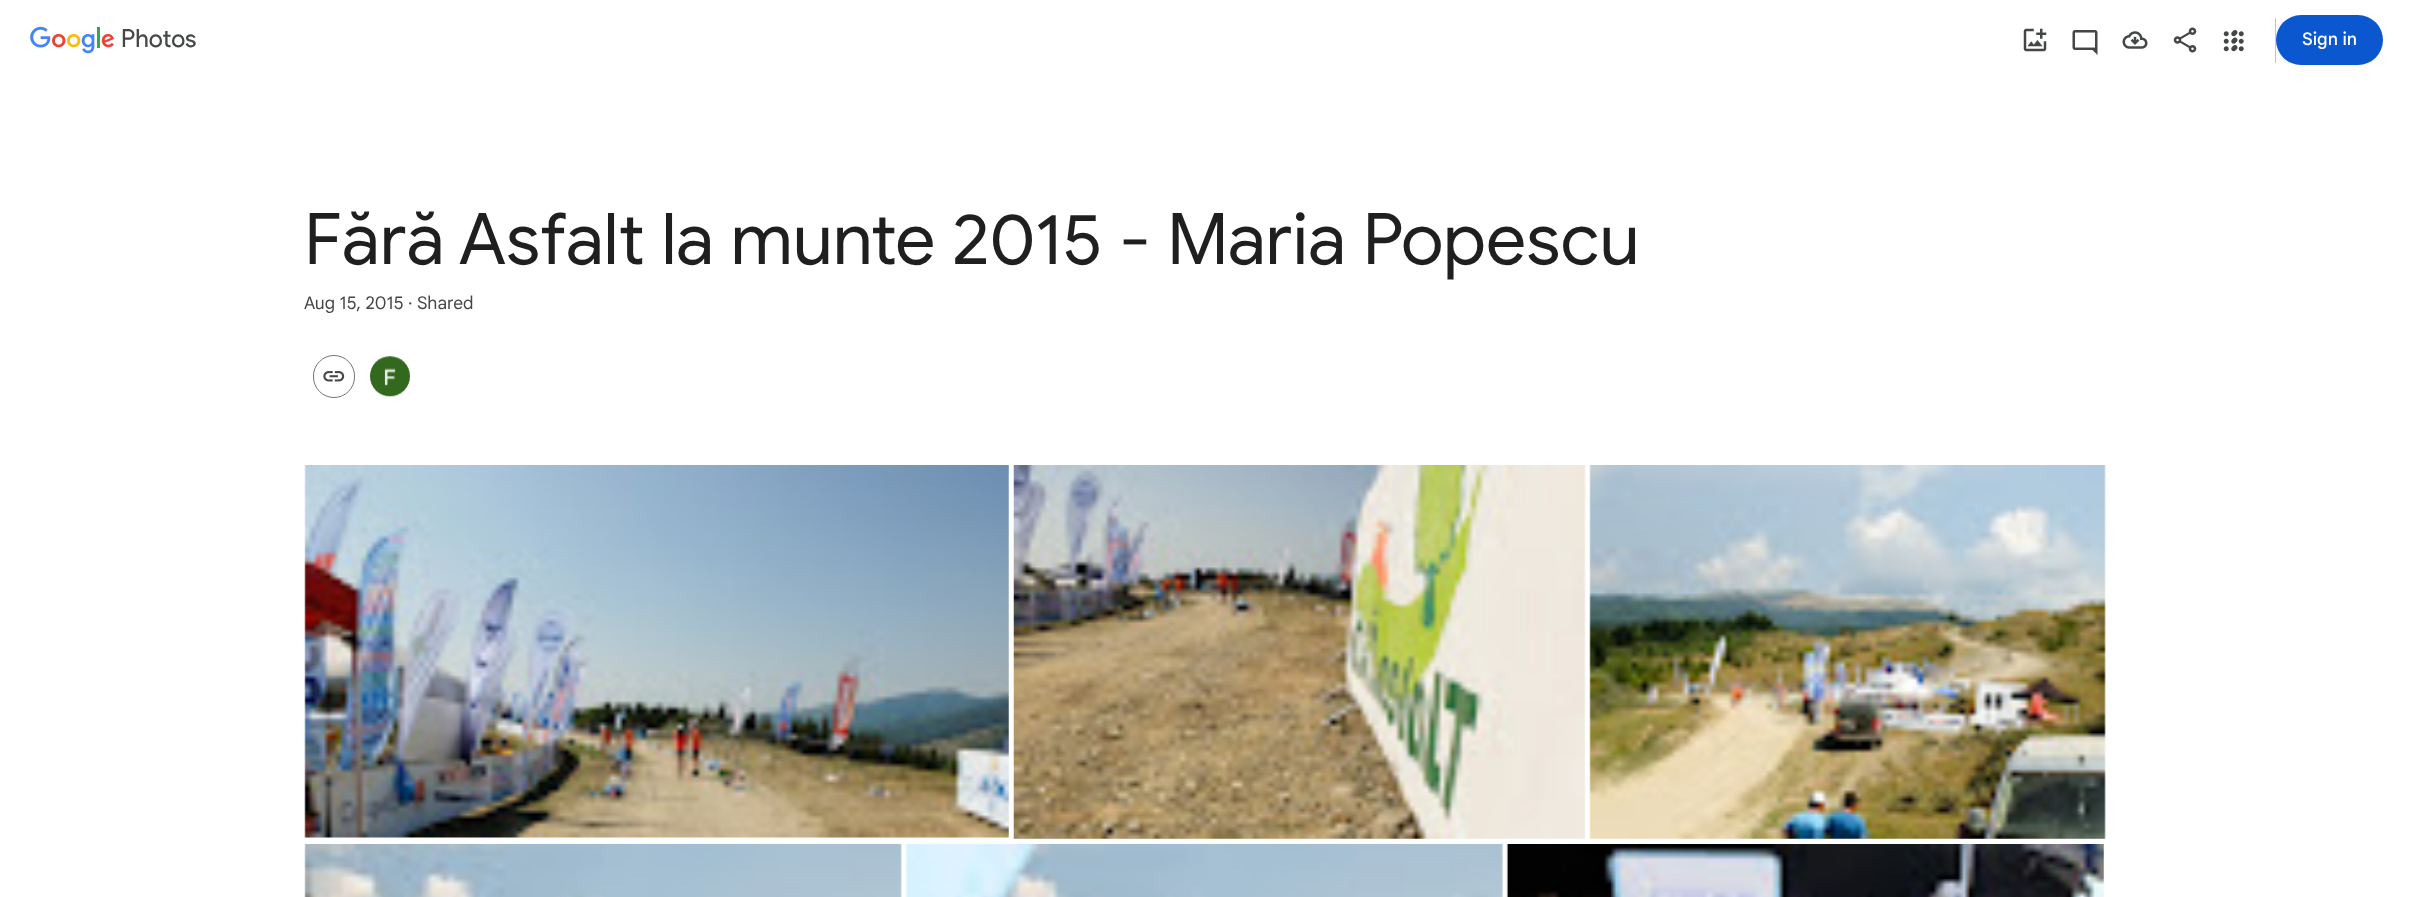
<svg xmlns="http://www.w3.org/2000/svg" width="2427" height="897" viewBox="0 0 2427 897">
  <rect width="100%" height="100%" fill="rgb(255,255,255)"/>
  <image x="30" y="26" width="84" height="28" href="pic1.png"/>
  <text x="121" y="47" font-family="Product Sans" font-size="25" fill="rgb(68,71,70)">Photos</text>
  <image x="2023" y="28" width="24" height="24" href="pic2.png"/>
  <image x="2072" y="30" width="26" height="25" href="pic3.png"/>
  <image x="2122" y="31" width="26" height="18" href="pic4.png"/>
  <image x="2173" y="27" width="24" height="26" href="pic5.png"/>
  <image x="2232" y="30" width="6" height="20" href="pic6.png"/>
  <rect x="2275" y="18" width="1" height="45" fill="rgb(196,199,197)"/>
  <text x="304" y="264" font-family="Google Sans" font-size="71.25" fill="rgb(31,31,31)">Fără Asfalt la munte 2015 - Maria Popescu</text>
  <text x="304" y="309" font-family="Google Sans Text" font-size="17.5" fill="rgb(68,71,70)">Aug 15, 2015 · Shared</text>
  <rect x="313.5" y="355.5" width="41" height="42" rx="20.5" fill="none" stroke="rgb(116,119,117)"/>
  <image x="323" y="371" width="22" height="11" href="pic7.png"/>
  <image x="370" y="356" width="40" height="41" href="pic8.png"/>
  <image x="304" y="465" width="705" height="373" href="pic9.png"/>
  <image x="1013" y="465" width="573" height="374" href="pic10.png"/>
  <image x="1589" y="465" width="517" height="374" href="pic11.png"/>
  <image x="304" y="844" width="598" height="53" href="pic12.png"/>
  <image x="905" y="844" width="598" height="53" href="pic13.png"/>
  <image x="1506" y="844" width="598" height="53" href="pic14.png"/>
  <image x="2223" y="31" width="21" height="21" href="pic15.png"/>
  <rect x="2276" y="15" width="107" height="50" rx="25" fill="rgb(11,87,208)"/>
  <text x="2302" y="45" font-family="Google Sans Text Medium" font-size="17.5" font-weight="500" fill="rgb(255,255,255)">Sign in</text>
</svg>
